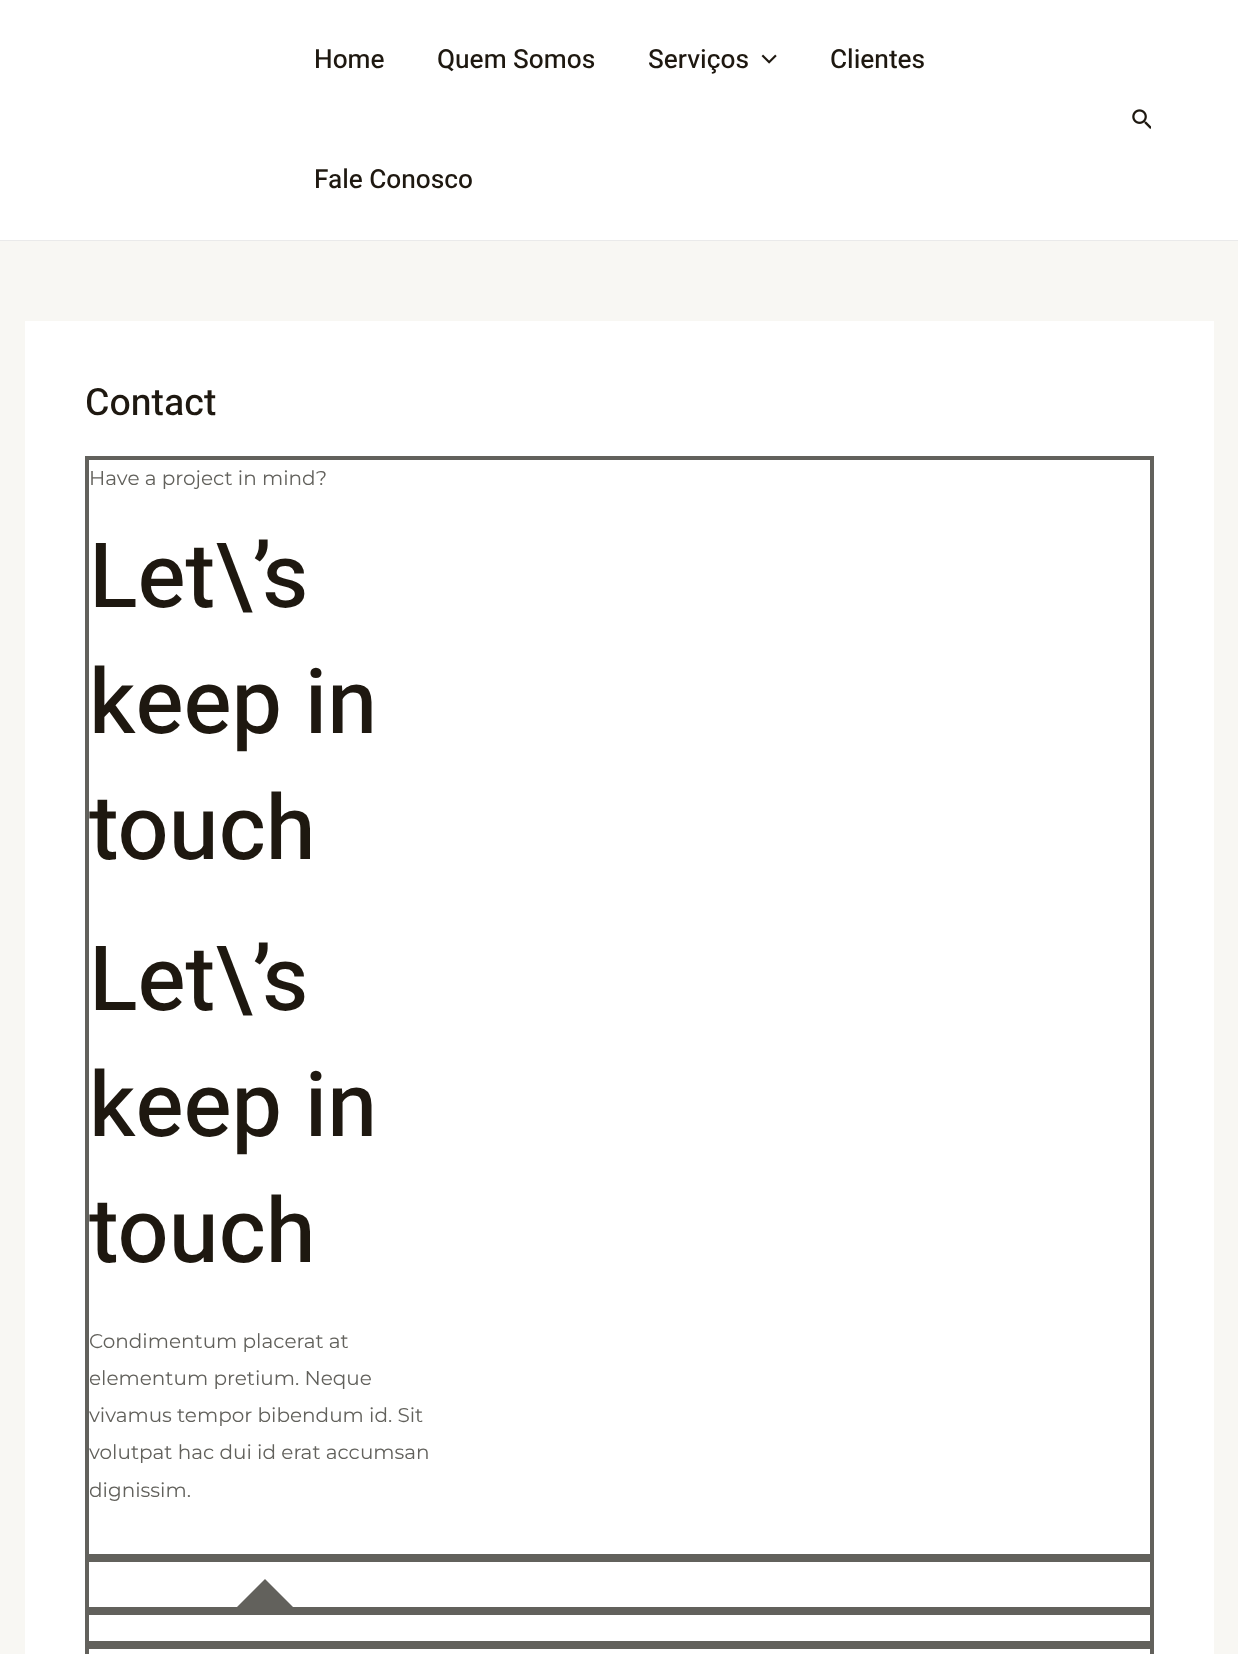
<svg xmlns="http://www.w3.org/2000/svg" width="1238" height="1654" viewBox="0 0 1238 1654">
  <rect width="100%" height="100%" fill="rgb(248,247,243)"/>
  <rect x="0" y="0" width="1238" height="240" fill="rgb(255,255,255)"/>
  <rect x="0" y="240" width="1238" height="1" fill="rgb(234,234,234)"/>
  <g font-family="Heebo" font-size="26.25" font-weight="500" fill="rgb(30,24,16)">
    <text x="314" y="68">Home</text>
    <text x="437" y="68">Quem Somos</text>
    <text x="648" y="68">Serviços</text>
  </g>
  <image x="761" y="54" width="16" height="10" href="pic1.png"/>
  <g font-family="Heebo" font-size="26.25" font-weight="500" fill="rgb(30,24,16)">
    <text x="830" y="68">Clientes</text>
    <text x="314" y="188">Fale Conosco</text>
  </g>
  <image x="1132" y="109" width="19" height="20" href="pic2.png"/>
  <rect x="25" y="321" width="1189" height="1333" fill="rgb(255,255,255)"/>
  <text x="85" y="415" font-family="Heebo" font-size="37.5" font-weight="500" fill="rgb(30,24,16)">Contact</text>
  <rect x="87" y="458" width="1065" height="1098" fill="none" stroke="rgb(98,97,92)" stroke-width="4"/>
  <text x="89" y="485" font-family="Montserrat" font-size="20" fill="rgb(98,97,92)">Have a project in mind?</text>
  <g font-family="Heebo" font-size="90" font-weight="500" fill="rgb(30,24,16)">
    <text>
      <tspan x="89" y="607">Let\’s</tspan>
      <tspan x="89" y="733">keep in</tspan>
      <tspan x="89" y="859">touch</tspan>
      <tspan x="89" y="1010">Let\’s</tspan>
      <tspan x="89" y="1136">keep in</tspan>
      <tspan x="89" y="1262">touch</tspan>
    </text>
  </g>
  <g font-family="Montserrat" font-size="20" fill="rgb(98,97,92)">
    <text>
      <tspan x="89" y="1348">Condimentum placerat at</tspan>
      <tspan x="89" y="1385">elementum pretium. Neque</tspan>
      <tspan x="89" y="1422">vivamus tempor bibendum id. Sit</tspan>
      <tspan x="89" y="1459">volutpat hac dui id erat accumsan</tspan>
      <tspan x="89" y="1497">dignissim.</tspan>
    </text>
  </g>
  <rect x="87" y="1560" width="1065" height="49" fill="none" stroke="rgb(98,97,92)" stroke-width="4"/>
  <rect x="87" y="1613" width="1065" height="30" fill="none" stroke="rgb(98,97,92)" stroke-width="4"/>
  <path d="M301 1615H229L265 1579Z" fill="rgb(98,97,92)"/>
  <rect x="87" y="1647" width="1065" height="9" fill="none" stroke="rgb(98,97,92)" stroke-width="4"/>
</svg>
